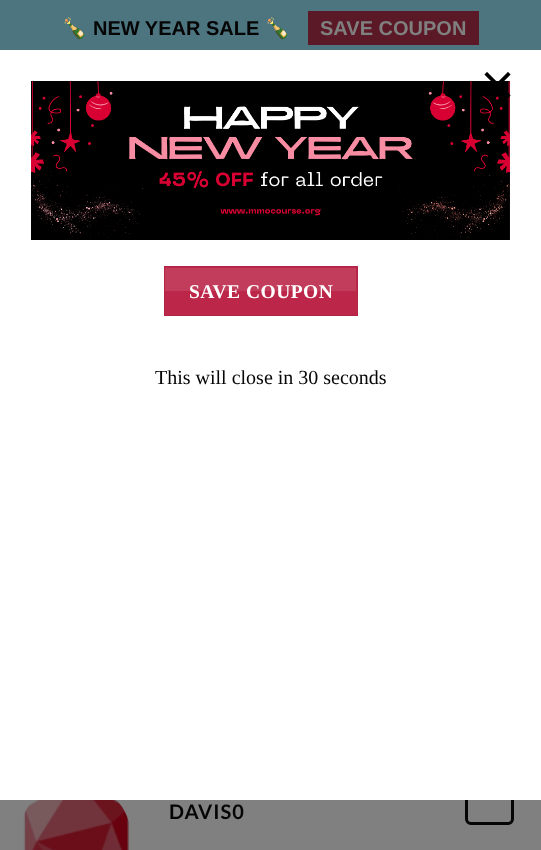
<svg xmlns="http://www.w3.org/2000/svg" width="541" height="850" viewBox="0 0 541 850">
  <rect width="100%" height="100%" fill="rgb(128,128,128)"/>
  <rect x="0" y="0" width="541" height="50" fill="rgb(77,117,128)"/>
  <text x="62" y="35" font-family="Noto Color Emoji" font-size="20" font-weight="bold" fill="rgb(5,5,5)">🍾</text>
  <text x="93" y="35" font-family="Liberation Sans" font-size="20" font-weight="bold" fill="rgb(5,5,5)">NEW YEAR SALE</text>
  <text x="265" y="35" font-family="Noto Color Emoji" font-size="20" font-weight="bold" fill="rgb(5,5,5)">🍾</text>
  <rect x="308" y="11" width="171" height="34" fill="rgb(91,24,38)"/>
  <text x="320" y="35" font-family="Liberation Sans" font-size="20" font-weight="bold" fill="rgb(128,128,128)">SAVE COUPON</text>
  <rect x="466.5" y="777.5" width="46" height="46" rx="4.5" fill="none" stroke="rgb(5,5,5)" stroke-width="3"/>
  <rect x="0" y="50" width="541" height="750" fill="rgb(255,255,255)"/>
  <image x="31" y="81" width="479" height="159" href="pic2.png"/>
  <image x="484" y="72" width="27" height="26" href="pic1.png"/>
  <rect x="164.5" y="266.5" width="193" height="49" fill="rgb(187,38,73)" stroke="rgb(178,36,69)"/>
  <rect x="165" y="268" width="191" height="23" fill="rgba(255,255,255,0.1)"/>
  <text x="189" y="298" font-family="Liberation Serif" font-size="19.5" font-weight="bold" letter-spacing="0.5" fill="rgb(255,255,255)">SAVE COUPON</text>
  <text x="155" y="384" font-family="Liberation Serif" font-size="20" fill="rgb(5,5,5)">This will close in 30 seconds</text>
  <image x="23" y="800" width="106" height="50" href="pic3.png"/>
  <text x="169" y="819" font-family="Lato" font-size="20" font-weight="bold" letter-spacing="1" fill="rgb(5,5,5)">DAVIS0</text>
</svg>
